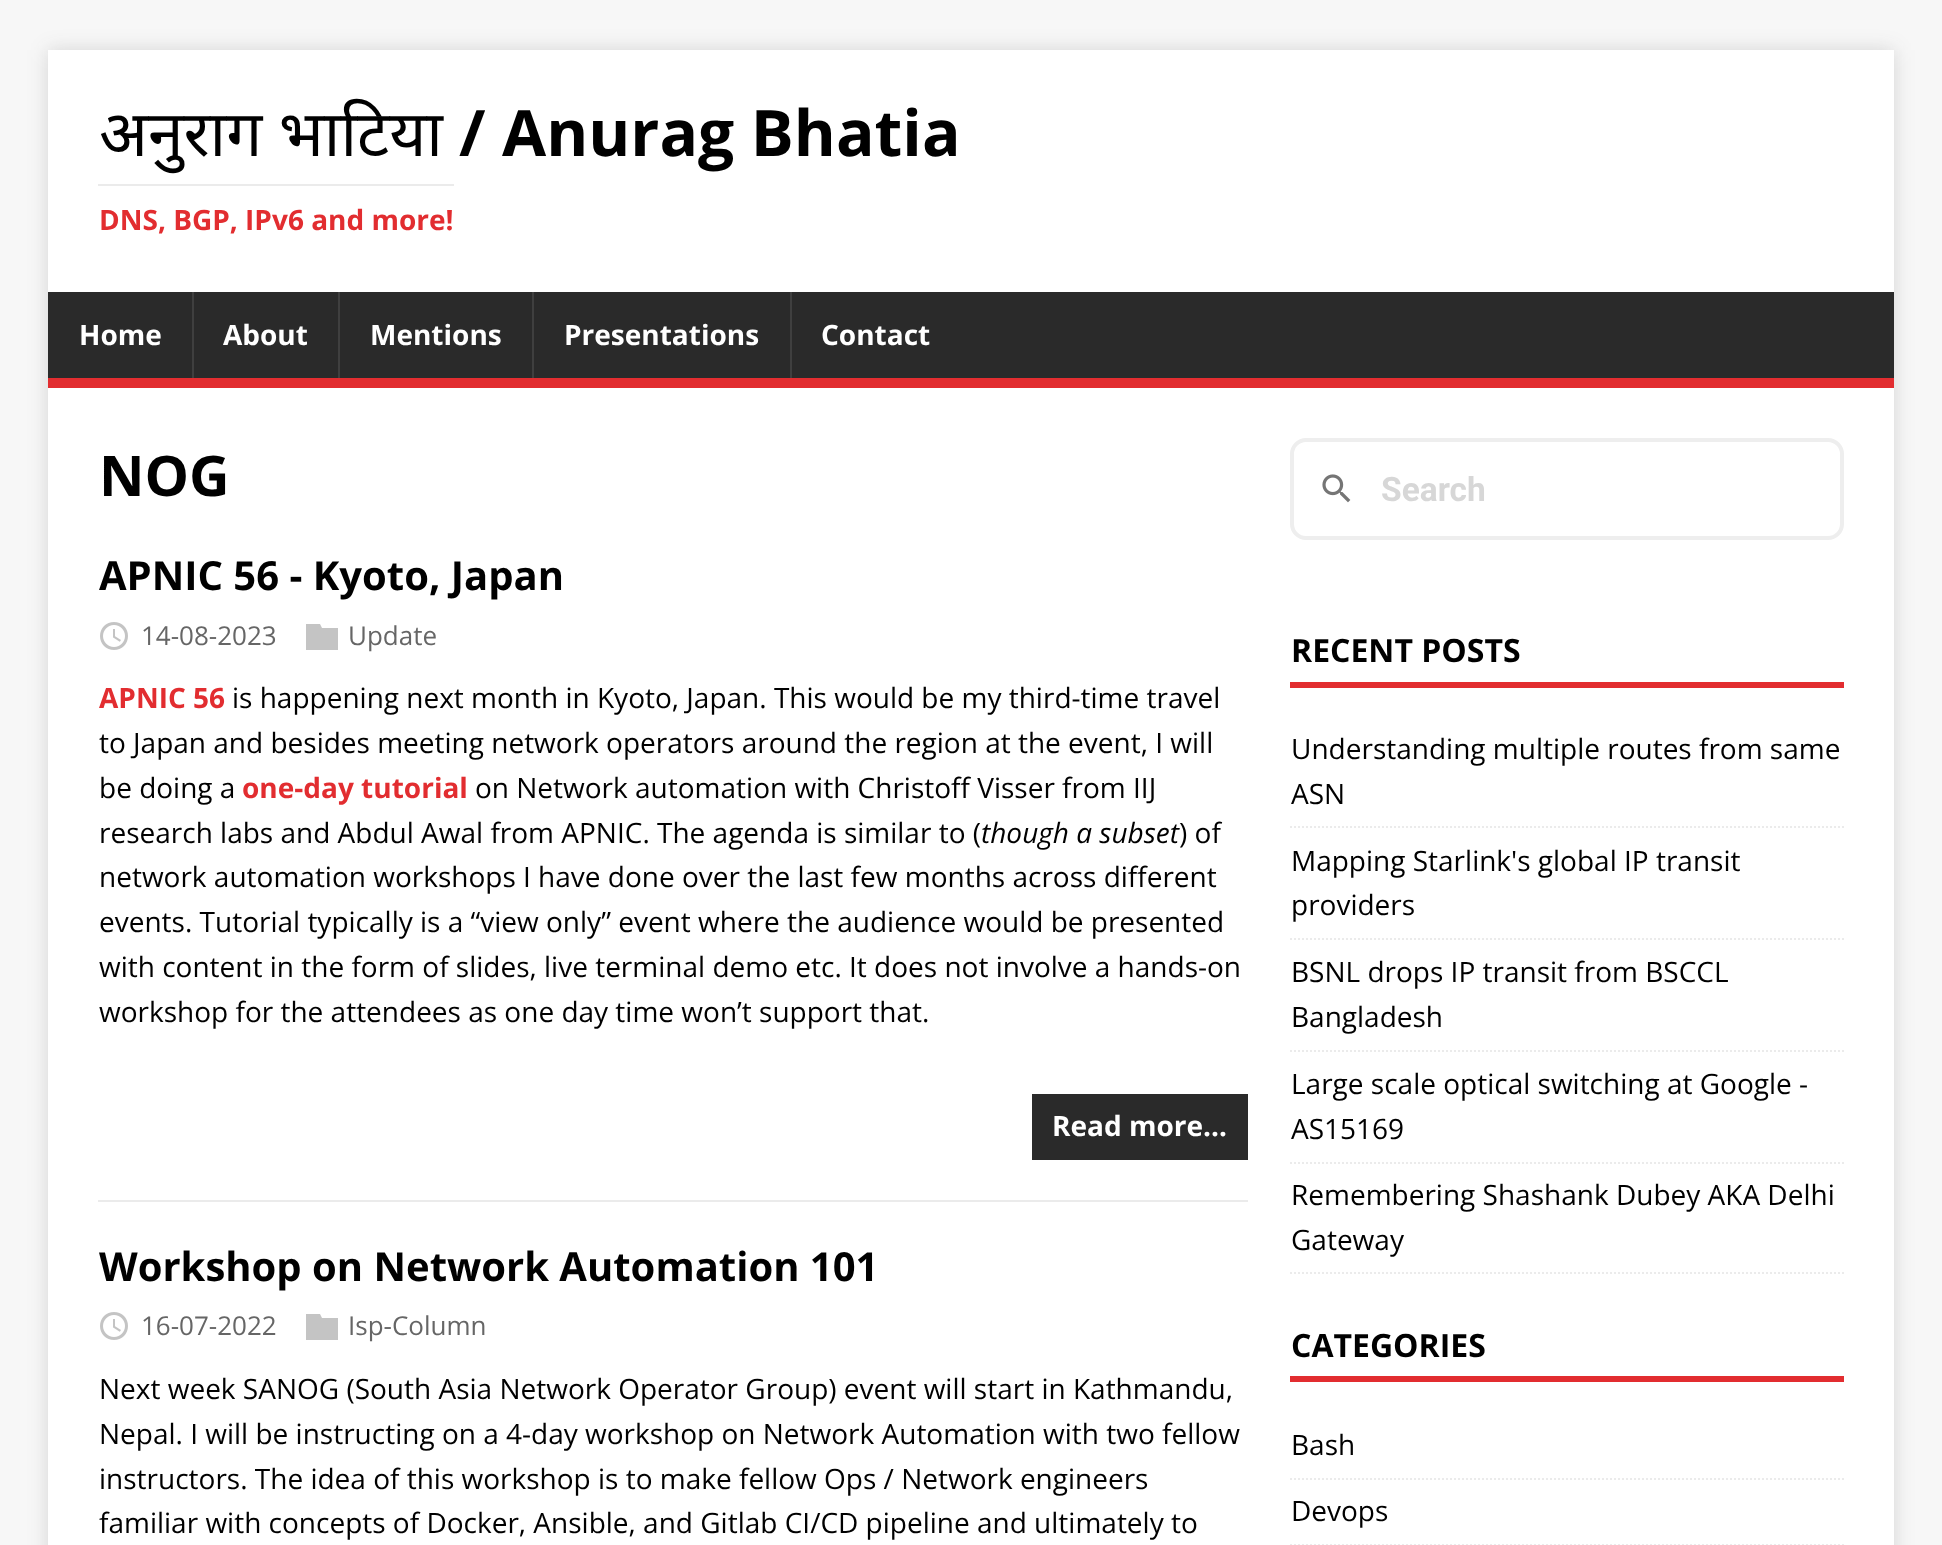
<svg xmlns="http://www.w3.org/2000/svg" width="1942" height="1545" viewBox="0 0 1942 1545">
  <rect width="100%" height="100%" fill="rgb(247,247,247)"/>
  <rect x="48" y="50" width="1846" height="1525" fill="rgba(50,50,50,0.17)" filter="blur(10px)"/>
  <rect x="48" y="50" width="1846" height="242" fill="rgb(255,255,255)"/>
  <text x="99" y="156" font-family="Noto Sans" font-size="64" fill="rgb(0,0,0)">अनुराग भाटिया</text>
  <text x="459" y="156" font-family="Open Sans" font-size="64" font-weight="bold" fill="rgb(0,0,0)">/ Anurag Bhatia</text>
  <rect x="98" y="184" width="356" height="2" fill="rgb(235,235,235)"/>
  <text x="99" y="230" font-family="Open Sans" font-size="28" font-weight="bold" fill="rgb(226,45,48)">DNS, BGP, IPv6 and more!</text>
  <rect x="48" y="378" width="1846" height="10" fill="rgb(226,45,48)"/>
  <rect x="48" y="292" width="1846" height="86" fill="rgb(42,42,42)"/>
  <text x="79" y="345" font-family="Open Sans" font-size="28" font-weight="bold" fill="rgb(255,255,255)">Home</text>
  <rect x="192" y="292" width="2" height="86" fill="rgb(63,63,63)"/>
  <text x="223" y="345" font-family="Open Sans" font-size="28" font-weight="bold" fill="rgb(255,255,255)">About</text>
  <rect x="338" y="292" width="2" height="86" fill="rgb(63,63,63)"/>
  <text x="370" y="345" font-family="Open Sans" font-size="28" font-weight="bold" fill="rgb(255,255,255)">Mentions</text>
  <rect x="532" y="292" width="2" height="86" fill="rgb(63,63,63)"/>
  <text x="564" y="345" font-family="Open Sans" font-size="28" font-weight="bold" fill="rgb(255,255,255)">Presentations</text>
  <rect x="790" y="292" width="2" height="86" fill="rgb(63,63,63)"/>
  <text x="821" y="345" font-family="Open Sans" font-size="28" font-weight="bold" fill="rgb(255,255,255)">Contact</text>
  <rect x="48" y="388" width="1846" height="1157" fill="rgb(255,255,255)"/>
  <text x="99" y="496" font-family="Open Sans" font-size="56" font-weight="bold" fill="rgb(0,0,0)">NOG</text>
  <rect x="98" y="1200" width="1150" height="2" fill="rgb(235,235,235)"/>
  <text x="99" y="590" font-family="Open Sans" font-size="40" font-weight="bold" fill="rgb(0,0,0)">APNIC 56 - Kyoto, Japan</text>
  <image x="100" y="622" width="28" height="28" href="pic1.png"/>
  <g font-family="Open Sans" font-size="26" fill="rgb(102,102,102)">
    <text x="141" y="645">14-08-2023</text>
    <text x="348" y="645">Update</text>
  </g>
  <path d="M320 624L322 628H338V650H306V624Z" fill="rgb(196,196,196)"/>
  <text x="99" y="708" font-family="Open Sans" font-size="28" font-weight="bold" fill="rgb(226,45,48)">APNIC 56</text>
  <g font-family="Open Sans" font-size="28" fill="rgb(0,0,0)">
    <text x="232" y="708">is happening next month in Kyoto, Japan. This would be my third-time travel</text>
    <text>
      <tspan x="99" y="753">to Japan and besides meeting network operators around the region at the event, I will</tspan>
      <tspan x="99" y="798">be doing a</tspan>
    </text>
  </g>
  <text x="242" y="798" font-family="Open Sans" font-size="28" font-weight="bold" fill="rgb(226,45,48)">one-day tutorial</text>
  <g font-family="Open Sans" font-size="28" fill="rgb(0,0,0)">
    <text x="475" y="798">on Network automation with Christoff Visser from IIJ</text>
    <text x="99" y="843">research labs and Abdul Awal from APNIC. The agenda is similar to (</text>
  </g>
  <text x="981" y="843" font-family="Open Sans" font-size="28" font-style="italic" fill="rgb(0,0,0)">though a subset</text>
  <g font-family="Open Sans" font-size="28" fill="rgb(0,0,0)">
    <text x="1179" y="843">) of</text>
    <text>
      <tspan x="99" y="887">network automation workshops I have done over the last few months across different</tspan>
      <tspan x="99" y="932">events. Tutorial typically is a “view only” event where the audience would be presented</tspan>
      <tspan x="99" y="977">with content in the form of slides, live terminal demo etc. It does not involve a hands-on</tspan>
      <tspan x="99" y="1022">workshop for the attendees as one day time won’t support that.</tspan>
    </text>
  </g>
  <rect x="1032" y="1094" width="216" height="66" fill="rgb(42,42,42)"/>
  <text x="1052" y="1136" font-family="Open Sans" font-size="28" font-weight="bold" fill="rgb(255,255,255)">Read more…</text>
  <text x="99" y="1281" font-family="Open Sans" font-size="40" font-weight="bold" fill="rgb(0,0,0)">Workshop on Network Automation 101</text>
  <image x="100" y="1312" width="28" height="28" href="pic1.png"/>
  <g font-family="Open Sans" font-size="26" fill="rgb(102,102,102)">
    <text x="141" y="1335">16-07-2022</text>
    <text x="348" y="1335">Isp-Column</text>
  </g>
  <path d="M320 1314L322 1318H338V1340H306V1314Z" fill="rgb(196,196,196)"/>
  <g font-family="Open Sans" font-size="28" fill="rgb(0,0,0)">
    <text>
      <tspan x="99" y="1399">Next week SANOG (South Asia Network Operator Group) event will start in Kathmandu,</tspan>
      <tspan x="99" y="1444">Nepal. I will be instructing on a 4-day workshop on Network Automation with two fellow</tspan>
      <tspan x="99" y="1489">instructors. The idea of this workshop is to make fellow Ops / Network engineers</tspan>
      <tspan x="99" y="1533">familiar with concepts of Docker, Ansible, and Gitlab CI/CD pipeline and ultimately to</tspan>
    </text>
  </g>
  <rect x="1292" y="440" width="550" height="98" rx="14" fill="none" stroke="rgb(238,238,238)" stroke-width="4"/>
  <image x="1322" y="474" width="29" height="29" href="pic2.png"/>
  <text x="1381" y="501" font-family="Roboto" font-size="33.5" font-weight="bold" fill="rgb(215,215,215)">Search</text>
  <rect x="1290" y="682" width="554" height="6" fill="rgb(226,45,48)"/>
  <text x="1291" y="662" font-family="Open Sans" font-size="32" font-weight="bold" fill="rgb(0,0,0)">RECENT POSTS</text>
  <path d="M1290 827H1844" fill="none" stroke="rgb(235,235,235)" stroke-width="2" stroke-dasharray="2 2"/>
  <g font-family="Open Sans" font-size="28" fill="rgb(0,0,0)">
    <text>
      <tspan x="1291" y="759">Understanding multiple routes from same</tspan>
      <tspan x="1291" y="804">ASN</tspan>
    </text>
  </g>
  <path d="M1290 939H1844" fill="none" stroke="rgb(235,235,235)" stroke-width="2" stroke-dasharray="2 2"/>
  <g font-family="Open Sans" font-size="28" fill="rgb(0,0,0)">
    <text>
      <tspan x="1291" y="871">Mapping Starlink's global IP transit</tspan>
      <tspan x="1291" y="915">providers</tspan>
    </text>
  </g>
  <path d="M1290 1051H1844" fill="none" stroke="rgb(235,235,235)" stroke-width="2" stroke-dasharray="2 2"/>
  <g font-family="Open Sans" font-size="28" fill="rgb(0,0,0)">
    <text>
      <tspan x="1291" y="982">BSNL drops IP transit from BSCCL</tspan>
      <tspan x="1291" y="1027">Bangladesh</tspan>
    </text>
  </g>
  <path d="M1290 1163H1844" fill="none" stroke="rgb(235,235,235)" stroke-width="2" stroke-dasharray="2 2"/>
  <g font-family="Open Sans" font-size="28" fill="rgb(0,0,0)">
    <text>
      <tspan x="1291" y="1094">Large scale optical switching at Google -</tspan>
      <tspan x="1291" y="1139">AS15169</tspan>
    </text>
  </g>
  <path d="M1290 1273H1844" fill="none" stroke="rgb(235,235,235)" stroke-width="2" stroke-dasharray="2 2"/>
  <g font-family="Open Sans" font-size="28" fill="rgb(0,0,0)">
    <text>
      <tspan x="1291" y="1205">Remembering Shashank Dubey AKA Delhi</tspan>
      <tspan x="1291" y="1250">Gateway</tspan>
    </text>
  </g>
  <rect x="1290" y="1376" width="554" height="6" fill="rgb(226,45,48)"/>
  <text x="1291" y="1357" font-family="Open Sans" font-size="32" font-weight="bold" fill="rgb(0,0,0)">CATEGORIES</text>
  <path d="M1290 1479H1844" fill="none" stroke="rgb(235,235,235)" stroke-width="2" stroke-dasharray="2 2"/>
  <text x="1291" y="1455" font-family="Open Sans" font-size="28" fill="rgb(0,0,0)">Bash</text>
  <path d="M1290 1545H1844" fill="none" stroke="rgb(235,235,235)" stroke-width="2" stroke-dasharray="2 2"/>
  <text x="1291" y="1521" font-family="Open Sans" font-size="28" fill="rgb(0,0,0)">Devops</text>
</svg>
